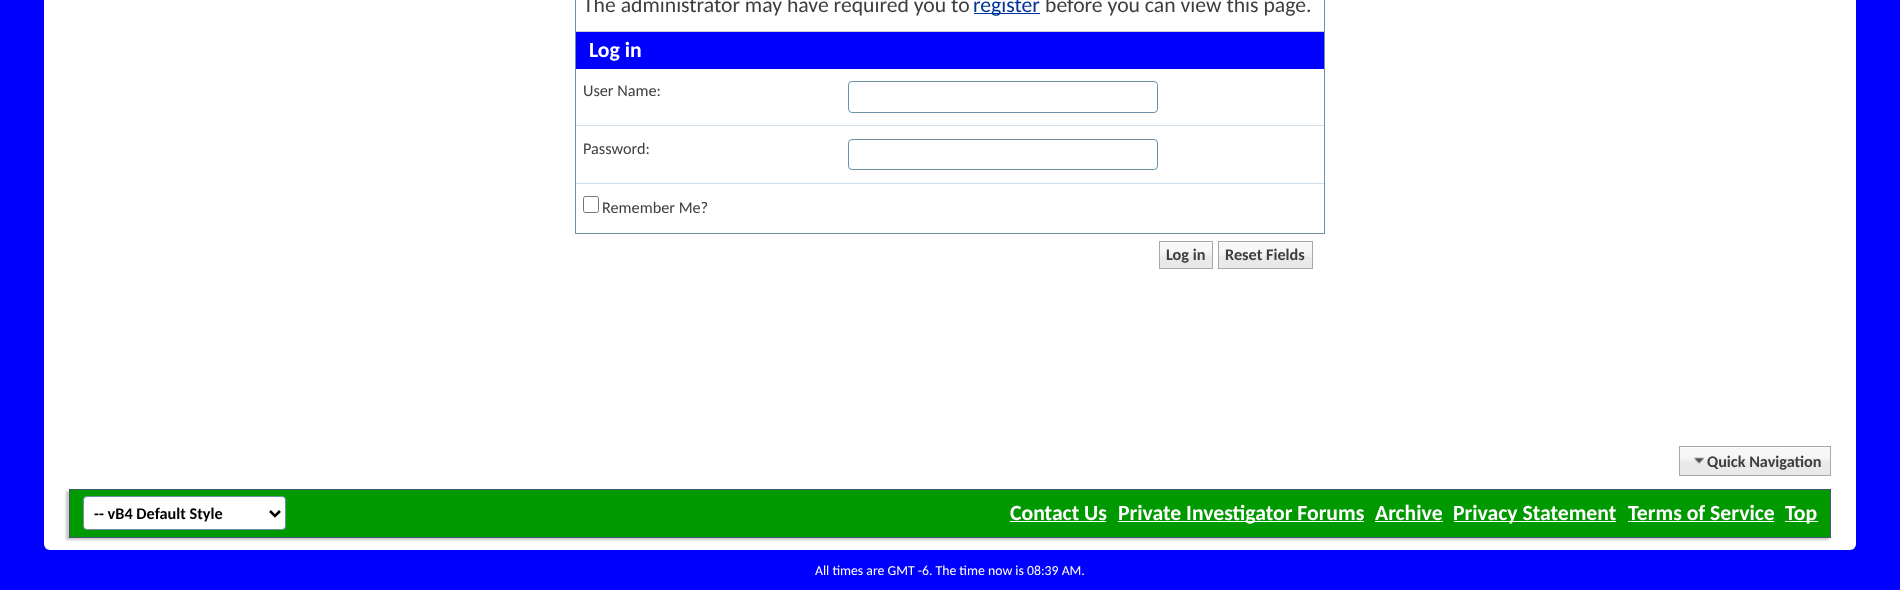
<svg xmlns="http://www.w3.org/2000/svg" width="1900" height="590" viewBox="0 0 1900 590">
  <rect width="100%" height="100%" fill="rgb(0,0,255)"/>
  <rect x="44" y="-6" width="1812" height="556" rx="6" fill="rgb(255,255,255)"/>
  <rect x="1324" y="0" width="1" height="234" fill="rgb(107,145,171)"/>
  <rect x="575" y="233" width="750" height="1" fill="rgb(107,145,171)"/>
  <rect x="575" y="0" width="1" height="234" fill="rgb(107,145,171)"/>
  <text x="583" y="12" font-family="Carlito" font-size="21.7" fill="rgb(62,62,62)">The administrator may have required you to</text>
  <rect x="974" y="13" width="66" height="1" fill="rgb(0,51,153)"/>
  <text x="973" y="12" font-family="Carlito" font-size="21.7" fill="rgb(0,51,153)">register</text>
  <text x="1045" y="12" font-family="Carlito" font-size="21.7" fill="rgb(62,62,62)">before you can view this page.</text>
  <rect x="576" y="32" width="748" height="37" fill="rgb(0,0,255)"/>
  <rect x="576" y="31" width="748" height="1" fill="rgb(206,206,206)"/>
  <text x="589" y="57" font-family="Carlito" font-size="21.7" font-weight="bold" fill="rgb(255,255,255)">Log in</text>
  <text x="583" y="96" font-family="Carlito" font-size="16.25" fill="rgb(62,62,62)">User Name:</text>
  <rect x="848.5" y="81.5" width="309" height="31" rx="3.5" fill="none" stroke="rgb(107,145,171)"/>
  <rect x="576" y="125" width="748" height="1" fill="rgb(206,223,235)"/>
  <text x="583" y="154" font-family="Carlito" font-size="16.25" fill="rgb(62,62,62)">Password:</text>
  <rect x="848.5" y="139.5" width="309" height="30" rx="3.5" fill="none" stroke="rgb(107,145,171)"/>
  <rect x="576" y="183" width="748" height="1" fill="rgb(206,223,235)"/>
  <rect x="583.5" y="196.5" width="15" height="16" rx="2" fill="none" stroke="rgb(118,118,118)"/>
  <text x="602" y="213" font-family="Carlito" font-size="16.25" fill="rgb(62,62,62)">Remember Me?</text>
  <rect x="1160" y="242" width="52" height="26" fill="rgb(233,233,233)"/>
  <image x="1160" y="242" width="52" height="15" href="pic1.png"/>
  <rect x="1159.5" y="241.5" width="53" height="27" fill="none" stroke="rgb(168,168,168)"/>
  <text x="1166" y="260" font-family="Carlito" font-size="16.25" font-weight="bold" fill="rgb(62,62,62)">Log in</text>
  <rect x="1219" y="242" width="93" height="26" fill="rgb(233,233,233)"/>
  <image x="1219" y="242" width="93" height="15" href="pic2.png"/>
  <rect x="1218.5" y="241.5" width="94" height="27" fill="none" stroke="rgb(168,168,168)"/>
  <text x="1225" y="260" font-family="Carlito" font-size="16.25" font-weight="bold" fill="rgb(62,62,62)">Reset Fields</text>
  <rect x="1680" y="447" width="150" height="28" fill="rgb(233,233,233)"/>
  <image x="1680" y="447" width="150" height="15" href="pic3.png"/>
  <rect x="1679.5" y="446.5" width="151" height="29" fill="none" stroke="rgb(168,168,168)"/>
  <image x="1693" y="457" width="12" height="8" href="pic4.png"/>
  <text x="1707" y="467" font-family="Carlito" font-size="16.25" font-weight="bold" fill="rgb(62,62,62)">Quick Navigation</text>
  <rect x="66" y="491" width="1763" height="49" fill="rgb(200,200,200)" filter="blur(1px)"/>
  <rect x="69.5" y="489.5" width="1761" height="48" fill="rgb(0,153,0)" stroke="rgb(66,87,105)"/>
  <rect x="83.5" y="496.5" width="202" height="33" rx="3.5" fill="rgb(255,255,255)" stroke="rgb(107,145,171)"/>
  <path d="M270 511L275 516L280 511" fill="none" stroke="rgb(0,0,0)" stroke-width="2.5"/>
  <text x="94" y="519" font-family="Carlito" font-size="16.25" font-weight="bold" fill="rgb(0,0,0)">-- vB4 Default Style</text>
  <text x="1010" y="520" font-family="Carlito" font-size="21.7" font-weight="bold" fill="rgb(255,255,255)">Contact Us</text>
  <rect x="1010" y="521" width="96" height="1" fill="rgb(255,255,255)"/>
  <rect x="1118" y="521" width="246" height="1" fill="rgb(255,255,255)"/>
  <g font-family="Carlito" font-size="21.7" font-weight="bold" fill="rgb(255,255,255)">
    <text x="1118" y="520">Private Investigator Forums</text>
    <text x="1375" y="520">Archive</text>
  </g>
  <rect x="1375" y="521" width="68" height="1" fill="rgb(255,255,255)"/>
  <rect x="1454" y="521" width="162" height="1" fill="rgb(255,255,255)"/>
  <g font-family="Carlito" font-size="21.7" font-weight="bold" fill="rgb(255,255,255)">
    <text x="1453" y="520">Privacy Statement</text>
    <text x="1628" y="520">Terms of Service</text>
  </g>
  <rect x="1628" y="521" width="146" height="1" fill="rgb(255,255,255)"/>
  <rect x="1785" y="521" width="33" height="1" fill="rgb(255,255,255)"/>
  <text x="1785" y="520" font-family="Carlito" font-size="21.7" font-weight="bold" fill="rgb(255,255,255)">Top</text>
  <text x="815" y="575" font-family="Carlito" font-size="13.75" fill="rgb(255,255,255)">All times are GMT -6. The time now is 08:39 AM.</text>
</svg>
